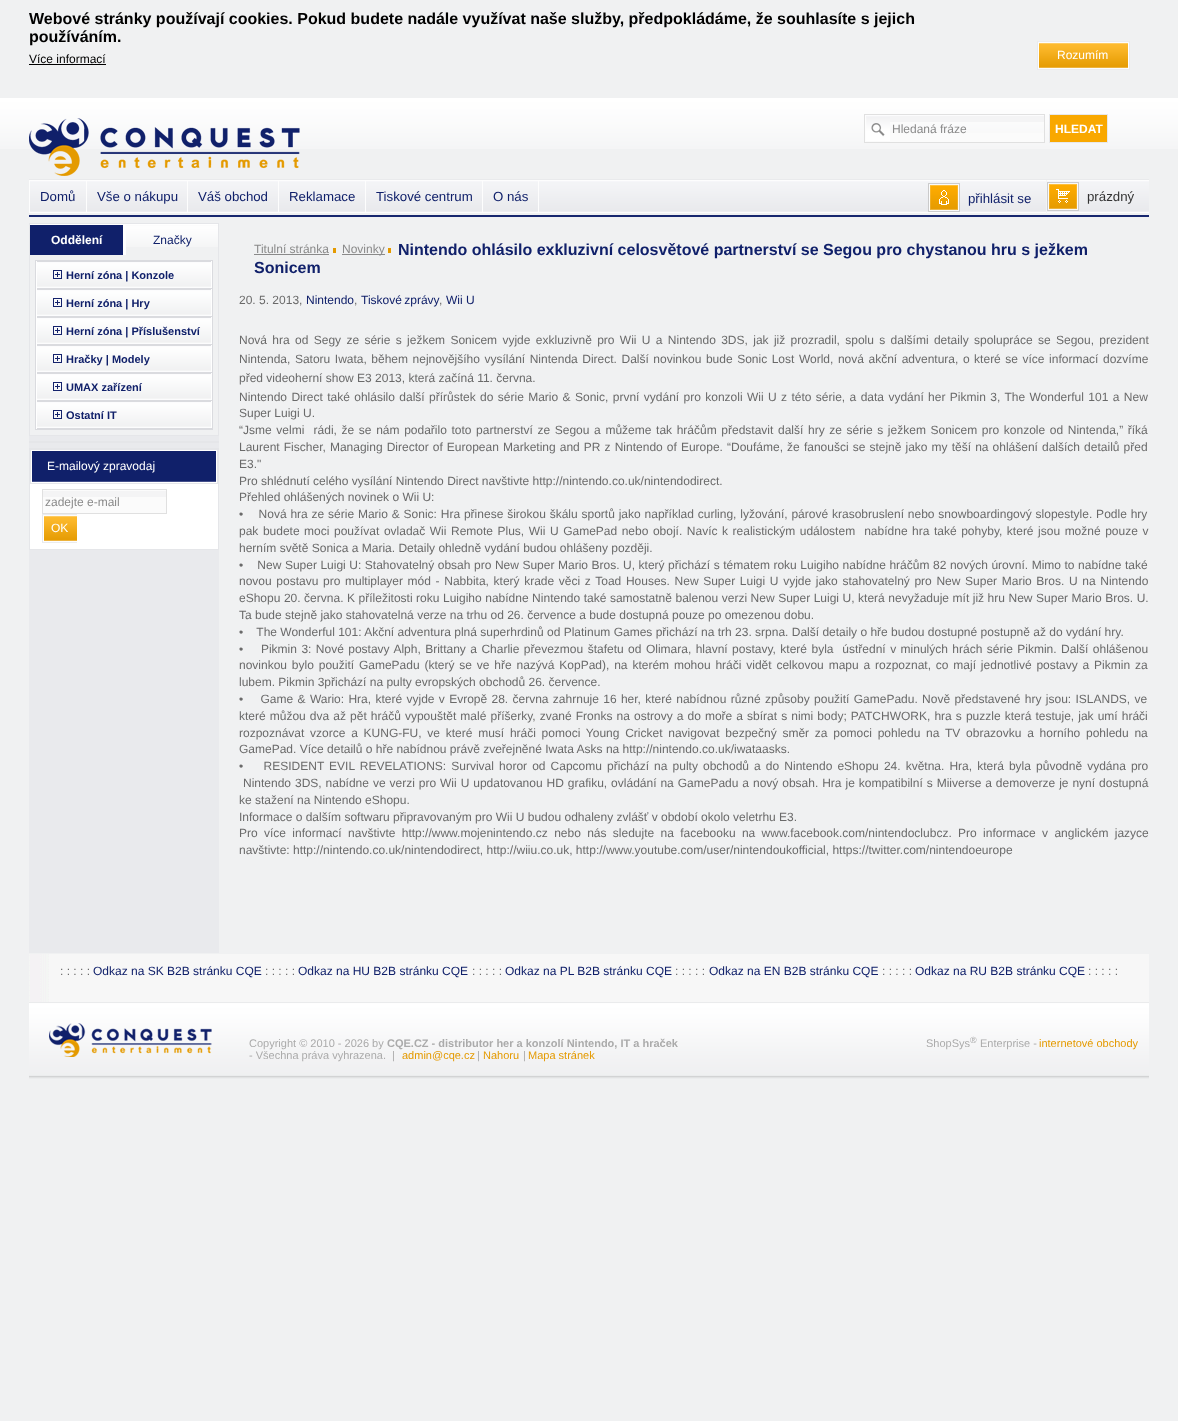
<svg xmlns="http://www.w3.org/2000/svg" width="1178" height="1421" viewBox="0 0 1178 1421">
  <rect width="100%" height="100%" fill="rgb(240,241,242)"/>
  <image x="0" y="98" width="1178" height="51" href="pic1.png"/>
  <g font-family="Liberation Sans" font-size="16" font-weight="bold" fill="rgb(0,0,0)">
    <text>
      <tspan x="29" y="24">Webové stránky používají cookies. Pokud budete nadále využívat naše služby, předpokládáme, že souhlasíte s jejich</tspan>
      <tspan x="29" y="42">používáním.</tspan>
    </text>
  </g>
  <text x="29" y="63" font-family="Liberation Sans" font-size="12" fill="rgb(0,0,0)">Více informací</text>
  <rect x="29" y="64" width="77" height="1" fill="rgb(0,0,0)"/>
  <image x="1037" y="41" width="93" height="29" href="pic2.png"/>
  <text x="1057" y="59" font-family="Liberation Sans" font-size="12" fill="rgb(255,255,255)">Rozumím</text>
  <rect x="29" y="179" width="1120" height="1" fill="rgb(233,234,236)"/>
  <image x="29" y="118" width="271" height="58" href="pic3.png"/>
  <image x="865" y="116" width="25" height="26" href="pic4.png"/>
  <rect x="864.5" y="114.5" width="180" height="28" fill="none" stroke="rgb(224,224,224)"/>
  <rect x="890" y="133" width="154" height="9" fill="rgb(251,251,251)"/>
  <rect x="890" y="116" width="154" height="6" fill="rgb(244,244,245)"/>
  <text x="892" y="133" font-family="Liberation Sans" font-size="12" fill="rgb(138,138,138)">Hledaná fráze</text>
  <rect x="1049.5" y="114.5" width="58" height="28" fill="rgb(249,168,0)" stroke="rgb(231,232,235)"/>
  <text x="1055" y="133" font-family="Liberation Sans" font-size="12" font-weight="bold" fill="rgb(255,255,255)">HLEDAT</text>
  <image x="29" y="180" width="1120" height="33" href="pic5.png"/>
  <rect x="29" y="215" width="1120" height="2" fill="rgb(24,39,111)"/>
  <rect x="86" y="181" width="1" height="31" fill="rgb(253,253,253)"/>
  <rect x="29" y="181" width="1" height="31" fill="rgb(253,253,253)"/>
  <text x="40" y="201" font-family="Liberation Sans" font-size="13.25" fill="rgb(16,32,106)">Domů</text>
  <rect x="187" y="181" width="1" height="31" fill="rgb(253,253,253)"/>
  <text x="97" y="201" font-family="Liberation Sans" font-size="13.25" fill="rgb(16,32,106)">Vše o nákupu</text>
  <rect x="278" y="181" width="1" height="31" fill="rgb(253,253,253)"/>
  <text x="198" y="201" font-family="Liberation Sans" font-size="13.25" fill="rgb(16,32,106)">Váš obchod</text>
  <rect x="365" y="181" width="1" height="31" fill="rgb(253,253,253)"/>
  <text x="289" y="201" font-family="Liberation Sans" font-size="13.25" fill="rgb(16,32,106)">Reklamace</text>
  <rect x="482" y="181" width="1" height="31" fill="rgb(253,253,253)"/>
  <text x="376" y="201" font-family="Liberation Sans" font-size="13.25" fill="rgb(16,32,106)">Tiskové centrum</text>
  <rect x="538" y="181" width="1" height="31" fill="rgb(253,253,253)"/>
  <text x="493" y="201" font-family="Liberation Sans" font-size="13.25" fill="rgb(16,32,106)">O nás</text>
  <image x="928" y="183" width="32" height="29" href="pic6.png"/>
  <rect x="1046" y="180" width="1" height="34" fill="rgb(243,244,245)"/>
  <text x="968" y="203" font-family="Liberation Sans" font-size="13.25" fill="rgb(16,32,106)">přihlásit se</text>
  <image x="1047" y="182" width="32" height="29" href="pic7.png"/>
  <text x="1087" y="201" font-family="Liberation Sans" font-size="13.25" fill="rgb(51,51,51)">prázdný</text>
  <rect x="29" y="436" width="190" height="517" fill="rgb(233,234,237)"/>
  <rect x="29.5" y="223.5" width="189" height="212" fill="none" stroke="rgb(229,230,233)"/>
  <rect x="30" y="224" width="188" height="31" fill="rgb(255,255,255)"/>
  <rect x="30" y="225" width="93" height="30" fill="rgb(16,32,106)"/>
  <text x="51" y="244" font-family="Liberation Sans" font-size="12" font-weight="bold" fill="rgb(255,255,255)">Oddělení</text>
  <rect x="126" y="247" width="92" height="8" fill="rgb(240,241,242)"/>
  <image x="126" y="225" width="92" height="22" href="pic8.png"/>
  <text x="153" y="244" font-family="Liberation Sans" font-size="12" fill="rgb(16,32,106)">Značky</text>
  <rect x="35.5" y="260.5" width="177" height="169" fill="none" stroke="rgb(218,219,223)"/>
  <image x="37" y="262" width="174" height="26" href="pic9.png"/>
  <rect x="36" y="261" width="176" height="1" fill="rgb(218,219,223)"/>
  <rect x="211" y="261" width="1" height="28" fill="rgb(255,255,255)"/>
  <rect x="36" y="288" width="176" height="2" fill="rgb(218,219,223)"/>
  <rect x="36" y="261" width="1" height="28" fill="rgb(255,255,255)"/>
  <image x="53" y="270" width="9" height="9" href="pic10.png"/>
  <text x="66" y="279" font-family="Liberation Sans" font-size="11" font-weight="bold" fill="rgb(16,32,106)">Herní zóna | Konzole</text>
  <image x="37" y="290" width="174" height="26" href="pic9.png"/>
  <rect x="211" y="289" width="1" height="28" fill="rgb(255,255,255)"/>
  <rect x="36" y="316" width="176" height="2" fill="rgb(218,219,223)"/>
  <rect x="36" y="289" width="1" height="28" fill="rgb(255,255,255)"/>
  <image x="53" y="298" width="9" height="9" href="pic10.png"/>
  <text x="66" y="307" font-family="Liberation Sans" font-size="11" font-weight="bold" fill="rgb(16,32,106)">Herní zóna | Hry</text>
  <image x="37" y="318" width="174" height="26" href="pic9.png"/>
  <rect x="211" y="317" width="1" height="28" fill="rgb(255,255,255)"/>
  <rect x="36" y="344" width="176" height="2" fill="rgb(218,219,223)"/>
  <rect x="36" y="317" width="1" height="28" fill="rgb(255,255,255)"/>
  <image x="53" y="326" width="9" height="9" href="pic10.png"/>
  <text x="66" y="335" font-family="Liberation Sans" font-size="11" font-weight="bold" fill="rgb(16,32,106)">Herní zóna | Příslušenství</text>
  <image x="37" y="346" width="174" height="26" href="pic9.png"/>
  <rect x="211" y="345" width="1" height="28" fill="rgb(255,255,255)"/>
  <rect x="36" y="372" width="176" height="2" fill="rgb(218,219,223)"/>
  <rect x="36" y="345" width="1" height="28" fill="rgb(255,255,255)"/>
  <image x="53" y="354" width="9" height="9" href="pic10.png"/>
  <text x="66" y="363" font-family="Liberation Sans" font-size="11" font-weight="bold" fill="rgb(16,32,106)">Hračky | Modely</text>
  <image x="37" y="374" width="174" height="26" href="pic9.png"/>
  <rect x="211" y="373" width="1" height="28" fill="rgb(255,255,255)"/>
  <rect x="36" y="400" width="176" height="2" fill="rgb(218,219,223)"/>
  <rect x="36" y="373" width="1" height="28" fill="rgb(255,255,255)"/>
  <image x="53" y="382" width="9" height="9" href="pic10.png"/>
  <text x="66" y="391" font-family="Liberation Sans" font-size="11" font-weight="bold" fill="rgb(16,32,106)">UMAX zařízení</text>
  <image x="37" y="402" width="174" height="26" href="pic9.png"/>
  <rect x="211" y="401" width="1" height="28" fill="rgb(255,255,255)"/>
  <rect x="36" y="428" width="176" height="1" fill="rgb(218,219,223)"/>
  <rect x="36" y="401" width="1" height="28" fill="rgb(255,255,255)"/>
  <image x="53" y="410" width="9" height="9" href="pic10.png"/>
  <text x="66" y="419" font-family="Liberation Sans" font-size="11" font-weight="bold" fill="rgb(16,32,106)">Ostatní IT</text>
  <rect x="29" y="441" width="190" height="2" fill="rgb(229,230,233)"/>
  <rect x="30" y="450" width="188" height="99" fill="rgb(255,255,255)"/>
  <rect x="29.5" y="448.5" width="189" height="101" fill="none" stroke="rgb(229,230,233)"/>
  <rect x="30.5" y="449.5" width="187" height="34" fill="none" stroke="rgb(229,230,233)"/>
  <rect x="32" y="451" width="184" height="30" fill="rgb(16,32,106)"/>
  <rect x="32" y="481" width="184" height="1" fill="rgb(67,79,138)"/>
  <text x="47" y="470" font-family="Liberation Sans" font-size="12" fill="rgb(255,255,255)">E-mailový zpravodaj</text>
  <rect x="43" y="490" width="123" height="23" fill="rgb(251,251,251)"/>
  <rect x="42" y="491" width="125" height="6" fill="rgb(244,244,245)"/>
  <rect x="42.5" y="489.5" width="124" height="24" fill="none" stroke="rgb(224,224,224)"/>
  <text x="45" y="506" font-family="Liberation Sans" font-size="12" fill="rgb(138,138,138)">zadejte e-mail</text>
  <image x="42" y="514" width="35" height="29" href="pic11.png"/>
  <text x="51" y="532" font-family="Liberation Sans" font-size="12" fill="rgb(255,255,255)">OK</text>
  <text x="254" y="253" font-family="Liberation Sans" font-size="12" fill="rgb(138,138,138)">Titulní stránka</text>
  <rect x="254" y="254" width="75" height="1" fill="rgb(138,138,138)"/>
  <rect x="333" y="248" width="3" height="5" fill="rgb(228,154,0)"/>
  <rect x="342" y="254" width="43" height="1" fill="rgb(138,138,138)"/>
  <text x="342" y="253" font-family="Liberation Sans" font-size="12" fill="rgb(138,138,138)">Novinky</text>
  <rect x="388" y="248" width="3" height="5" fill="rgb(228,154,0)"/>
  <g font-family="Liberation Sans" font-size="16" font-weight="bold" fill="rgb(16,32,106)">
    <text x="398" y="255">Nintendo ohlásilo exkluzivní celosvětové partnerství se Segou pro chystanou hru s ježkem</text>
    <text x="254" y="273">Sonicem</text>
  </g>
  <text x="239" y="304" font-family="Liberation Sans" font-size="12" fill="rgb(106,106,106)">20. 5. 2013,</text>
  <text x="306" y="304" font-family="Liberation Sans" font-size="12" fill="rgb(16,32,106)">Nintendo</text>
  <text x="354" y="304" font-family="Liberation Sans" font-size="12" fill="rgb(106,106,106)">,</text>
  <text x="361" y="304" word-spacing="-1" font-family="Liberation Sans" font-size="12" fill="rgb(16,32,106)">Tiskové zprávy</text>
  <text x="439" y="304" font-family="Liberation Sans" font-size="12" fill="rgb(106,106,106)">,</text>
  <text x="446" y="304" font-family="Liberation Sans" font-size="12" fill="rgb(16,32,106)">Wii U</text>
  <g font-family="Liberation Sans" font-size="12" fill="rgb(106,106,106)">
    <text xml:space="preserve"><tspan x="239" y="344" word-spacing="2">Nová hra od Segy ze série s ježkem Sonicem vyjde exkluzivně pro Wii U a Nintendo 3DS, jak již prozradil, spolu s dalšími detaily spolupráce se Segou, prezident</tspan><tspan x="239" y="363" word-spacing="1.2">Nintenda, Satoru Iwata, během nejnovějšího vysílání Nintenda Direct. Další novinkou bude Sonic Lost World, nová akční adventura, o které se více informací dozvíme</tspan><tspan x="239" y="382">před videoherní show E3 2013, která začíná 11. června.</tspan><tspan x="239" y="401" word-spacing="1.05">Nintendo Direct také ohlásilo další přírůstek do série Mario &amp; Sonic, první vydání pro konzoli Wii U z této série, a data vydání her Pikmin 3, The Wonderful 101 a New</tspan><tspan x="239" y="417">Super Luigi U.</tspan><tspan x="239" y="434" word-spacing="1.3">“Jsme velmi  rádi, že se nám podařilo toto partnerství ze Segou a můžeme tak hráčům představit další hry ze série s ježkem Sonicem pro konzole od Nintenda,” říká</tspan><tspan x="239" y="451" word-spacing="0.75">Laurent Fischer, Managing Director of European Marketing and PR z Nintendo of Europe. “Doufáme, že fanoušci se stejně jako my těší na ohlášení dalších detailů před</tspan><tspan x="239" y="468">E3."</tspan><tspan x="239" y="485">Pro shlédnutí celého vysílání Nintendo Direct navštivte http://nintendo.co.uk/nintendodirect.</tspan><tspan x="239" y="501">Přehled ohlášených novinek o Wii U:</tspan><tspan x="239" y="518" word-spacing="0.5">•    Nová hra ze série Mario &amp; Sonic: Hra přinese širokou škálu sportů jako například curling, lyžování, párové krasobruslení nebo snowboardingový slopestyle. Podle hry</tspan><tspan x="239" y="535" word-spacing="1.2">pak budete moci používat ovladač Wii Remote Plus, Wii U GamePad nebo obojí. Navíc k realistickým událostem  nabídne hra také pohyby, které jsou možné pouze v</tspan><tspan x="239" y="552">herním světě Sonica a Maria. Detaily ohledně vydání budou ohlášeny později.</tspan><tspan x="239" y="569" word-spacing="0.2">•    New Super Luigi U: Stahovatelný obsah pro New Super Mario Bros. U, který přichází s tématem roku Luigiho nabídne hráčům 82 nových úrovní. Mimo to nabídne také</tspan><tspan x="239" y="585" word-spacing="1.3">novou postavu pro multiplayer mód - Nabbita, který krade věci z Toad Houses. New Super Luigi U vyjde jako stahovatelný pro New Super Mario Bros. U na Nintendo</tspan><tspan x="239" y="602" word-spacing="0.2">eShopu 20. června. K příležitosti roku Luigiho nabídne Nintendo také samostatně balenou verzi New Super Luigi U, která nevyžaduje mít již hru New Super Mario Bros. U.</tspan><tspan x="239" y="619">Ta bude stejně jako stahovatelná verze na trhu od 26. července a bude dostupná pouze po omezenou dobu.</tspan><tspan x="239" y="636">•    The Wonderful 101: Akční adventura plná superhrdinů od Platinum Games přichází na trh 23. srpna. Další detaily o hře budou dostupné postupně až do vydání hry.</tspan><tspan x="239" y="653" word-spacing="1.1">•    Pikmin 3: Nové postavy Alph, Brittany a Charlie převezmou štafetu od Olimara, hlavní postavy, které byla  ústřední v minulých hrách série Pikmin. Další ohlášenou</tspan><tspan x="239" y="669" word-spacing="1.5">novinkou bylo použití GamePadu (který se ve hře nazývá KopPad), na kterém mohou hráči vidět celkovou mapu a rozpoznat, co mají jednotlivé postavy a Pikmin za</tspan><tspan x="239" y="686">lubem. Pikmin 3přichází na pulty evropských obchodů 26. července.</tspan><tspan x="239" y="703" word-spacing="1">•    Game &amp; Wario: Hra, které vyjde v Evropě 28. června zahrnuje 16 her, které nabídnou různé způsoby použití GamePadu. Nově představené hry jsou: ISLANDS, ve</tspan><tspan x="239" y="720" word-spacing="0.75">které můžou dva až pět hráčů vypouštět malé příšerky, zvané Fronks na ostrovy a do moře a sbírat s nimi body; PATCHWORK, hra s puzzle která testuje, jak umí hráči</tspan><tspan x="239" y="737" word-spacing="2.4">rozpoznávat vzorce a KUNG-FU, ve které musí hráči pomoci Young Cricket navigovat bezpečný směr za pomoci pohledu na TV obrazovku a horního pohledu na</tspan><tspan x="239" y="753">GamePad. Více detailů o hře nabídnou právě zveřejněné Iwata Asks na http://nintendo.co.uk/iwataasks.</tspan><tspan x="239" y="770" word-spacing="1.75">•    RESIDENT EVIL REVELATIONS: Survival horor od Capcomu přichází na pulty obchodů a do Nintendo eShopu 24. května. Hra, která byla původně vydána pro</tspan></text>
    <text x="243" y="787" word-spacing="0.6">Nintendo 3DS, nabídne ve verzi pro Wii U updatovanou HD grafiku, ovládání na GamePadu a nový obsah. Hra je kompatibilní s Miiverse a demoverze je nyní dostupná</text>
    <text>
      <tspan x="239" y="804">ke stažení na Nintendo eShopu.</tspan>
      <tspan x="239" y="821">Informace o dalším softwaru připravovaným pro Wii U budou odhaleny zvlášť v období okolo veletrhu E3.</tspan>
      <tspan x="239" y="837" word-spacing="3">Pro více informací navštivte http://www.mojenintendo.cz nebo nás sledujte na facebooku na www.facebook.com/nintendoclubcz. Pro informace v anglickém jazyce</tspan>
      <tspan x="239" y="854">navštivte: http://nintendo.co.uk/nintendodirect, http://wiiu.co.uk, http://www.youtube.com/user/nintendoukofficial, https://twitter.com/nintendoeurope</tspan>
    </text>
  </g>
  <rect x="49" y="954" width="1100" height="48" fill="rgb(247,247,247)"/>
  <image x="29" y="954" width="20" height="48" href="pic12.png"/>
  <text x="60" y="975" font-family="Liberation Sans" font-size="12" fill="rgb(106,106,106)">: : : : :</text>
  <text x="93" y="975" font-family="Liberation Sans" font-size="12" fill="rgb(16,32,106)">Odkaz na SK B2B stránku CQE</text>
  <text x="265" y="975" font-family="Liberation Sans" font-size="12" fill="rgb(106,106,106)">: : : : :</text>
  <text x="298" y="975" font-family="Liberation Sans" font-size="12" fill="rgb(16,32,106)">Odkaz na HU B2B stránku CQE</text>
  <text x="472" y="975" font-family="Liberation Sans" font-size="12" fill="rgb(106,106,106)">: : : : :</text>
  <text x="505" y="975" font-family="Liberation Sans" font-size="12" fill="rgb(16,32,106)">Odkaz na PL B2B stránku CQE</text>
  <text x="675" y="975" font-family="Liberation Sans" font-size="12" fill="rgb(106,106,106)">: : : : :</text>
  <text x="709" y="975" font-family="Liberation Sans" font-size="12" fill="rgb(16,32,106)">Odkaz na EN B2B stránku CQE</text>
  <text x="882" y="975" font-family="Liberation Sans" font-size="12" fill="rgb(106,106,106)">: : : : :</text>
  <text x="915" y="975" font-family="Liberation Sans" font-size="12" fill="rgb(16,32,106)">Odkaz na RU B2B stránku CQE</text>
  <text x="1088" y="975" font-family="Liberation Sans" font-size="12" fill="rgb(106,106,106)">: : : : :</text>
  <image x="29" y="1002" width="1120" height="77" href="pic13.png"/>
  <image x="49" y="1023" width="163" height="34" href="pic14.png"/>
  <text x="249" y="1047" font-family="Liberation Sans" font-size="11" fill="rgb(171,171,171)">Copyright © 2010 - 2026 by</text>
  <text x="387" y="1047" font-family="Liberation Sans" font-size="11" font-weight="bold" fill="rgb(171,171,171)">CQE.CZ - distributor her a konzolí Nintendo, IT a hraček</text>
  <text x="249" y="1059" font-family="Liberation Sans" font-size="11" fill="rgb(171,171,171)" xml:space="preserve">- Všechna práva vyhrazena.  |</text>
  <text x="402" y="1059" font-family="Liberation Sans" font-size="11" fill="rgb(228,154,0)">admin@cqe.cz</text>
  <text x="477" y="1059" font-family="Liberation Sans" font-size="11" fill="rgb(171,171,171)">|</text>
  <text x="483" y="1059" font-family="Liberation Sans" font-size="11" fill="rgb(228,154,0)">Nahoru</text>
  <text x="523" y="1059" font-family="Liberation Sans" font-size="11" fill="rgb(171,171,171)">|</text>
  <text x="528" y="1059" font-family="Liberation Sans" font-size="11" fill="rgb(228,154,0)">Mapa stránek</text>
  <text x="926" y="1047" font-family="Liberation Sans" font-size="11" fill="rgb(171,171,171)">ShopSys</text>
  <text x="970" y="1043" font-family="Liberation Sans" font-size="9" fill="rgb(171,171,171)">®</text>
  <text x="980" y="1047" font-family="Liberation Sans" font-size="11" fill="rgb(171,171,171)">Enterprise -</text>
  <text x="1039" y="1047" font-family="Liberation Sans" font-size="11" fill="rgb(228,154,0)">internetové obchody</text>
</svg>
